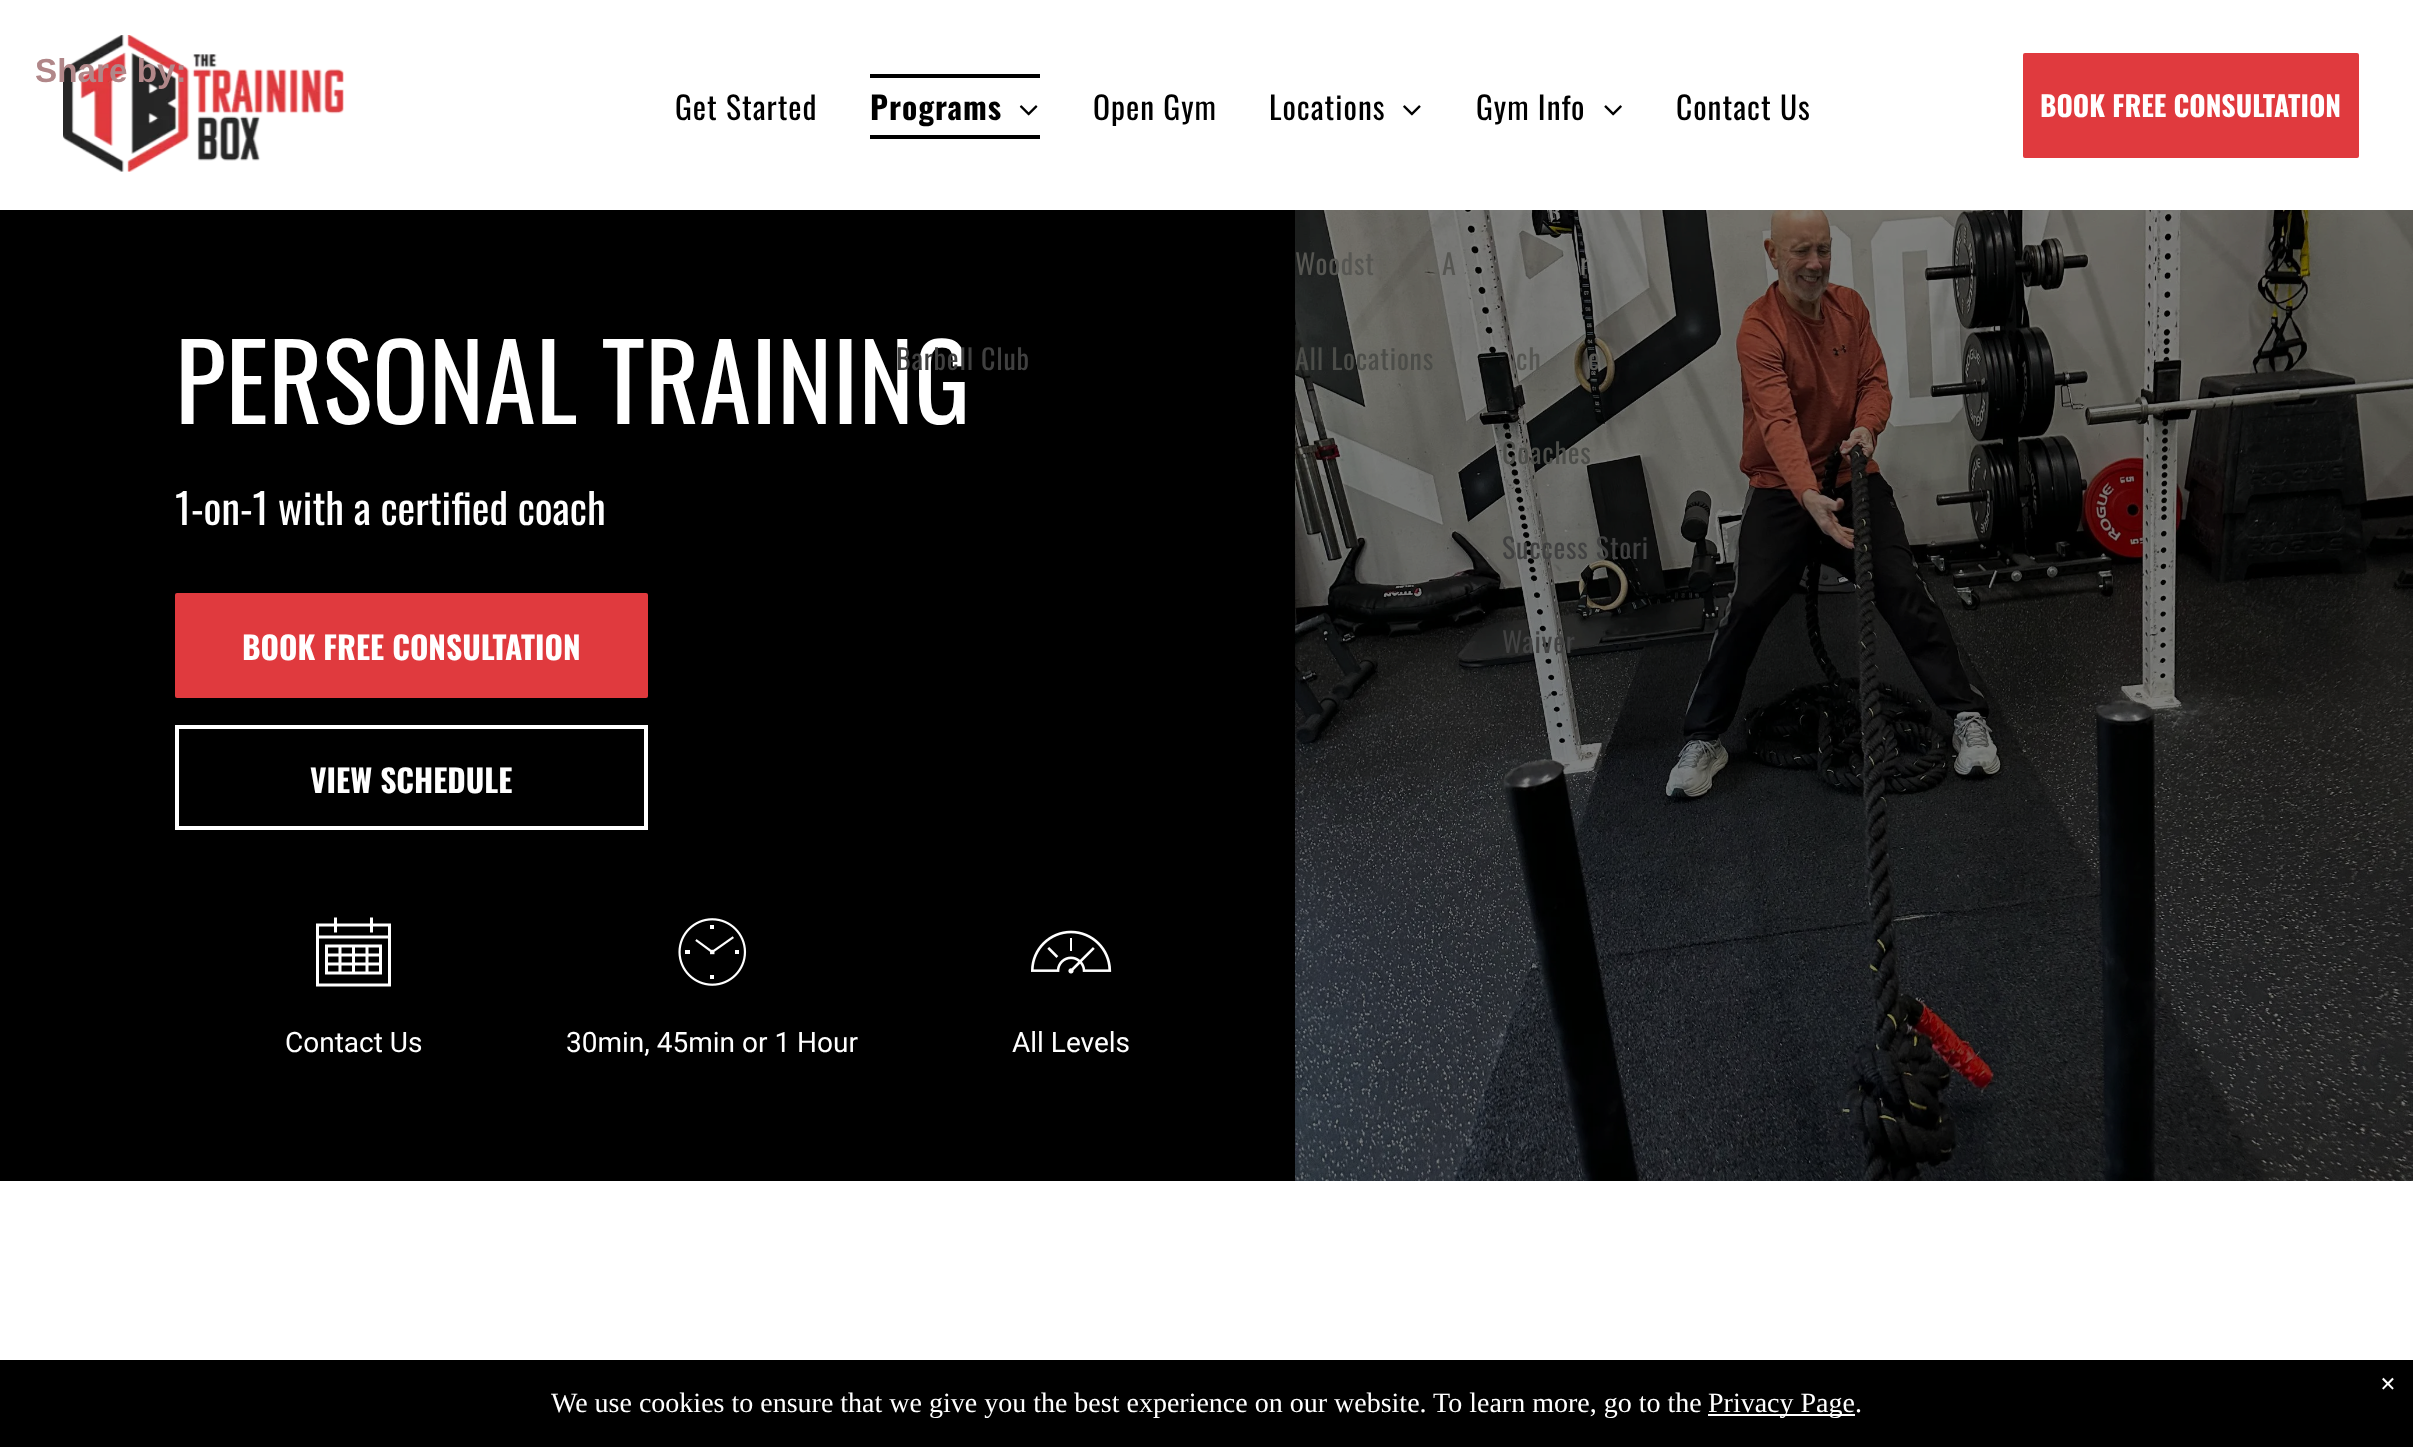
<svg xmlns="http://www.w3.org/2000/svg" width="2413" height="1447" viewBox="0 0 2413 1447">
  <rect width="100%" height="100%" fill="rgb(0,0,0)"/>
  <rect x="0" y="0" width="2413" height="210" fill="rgb(255,255,255)"/>
  <image x="63" y="35" width="281" height="137" href="pic5.png"/>
  <text x="35" y="82" font-family="Liberation Sans" font-size="33.25" font-weight="bold" fill="rgb(177,135,137)">Share by:</text>
  <text x="175" y="424" font-family="Oswald" font-size="105" fill="rgb(255,255,255)">PERSONAL TRAINING</text>
  <text x="175" y="525" font-family="Oswald" font-size="42" fill="rgb(255,255,255)">1-on-1 with a certified coach</text>
  <rect x="175" y="593" width="473" height="105" rx="2" fill="rgb(224,58,62)"/>
  <text x="242" y="660" font-family="Oswald" font-size="31.5" font-weight="bold" fill="rgb(255,255,255)">BOOK FREE CONSULTATION</text>
  <rect x="177" y="727" width="469" height="101" fill="none" stroke="rgb(255,255,255)" stroke-width="4"/>
  <text x="310" y="793" font-family="Oswald" font-size="31.5" font-weight="bold" fill="rgb(255,255,255)">VIEW SCHEDULE</text>
  <image x="316" y="917" width="75" height="70" href="pic1.png"/>
  <text x="285" y="1052" font-family="Roboto" font-size="28" fill="rgb(255,255,255)">Contact Us</text>
  <image x="678" y="918" width="69" height="68" href="pic2.png"/>
  <text x="566" y="1052" font-family="Roboto" font-size="28" fill="rgb(255,255,255)">30min, 45min or 1 Hour</text>
  <image x="1031" y="930" width="81" height="44" href="pic3.png"/>
  <text x="1012" y="1052" font-family="Roboto" font-size="28" fill="rgb(255,255,255)">All Levels</text>
  <image x="1295" y="210" width="1118" height="971" href="pic4.png"/>
  <rect x="0" y="1181" width="2413" height="179" fill="rgb(255,255,255)"/>
  <text x="675" y="120" font-family="Oswald" font-size="31.5" letter-spacing="1" fill="rgb(0,0,0)">Get Started</text>
  <rect x="870" y="74" width="170" height="4" fill="rgb(0,0,0)"/>
  <text x="870" y="120" font-family="Oswald" font-size="31.5" font-weight="bold" letter-spacing="1" fill="rgb(0,0,0)">Programs</text>
  <image x="1019" y="105" width="19" height="11" href="pic6.png"/>
  <rect x="870" y="135" width="170" height="4" fill="rgb(0,0,0)"/>
  <text x="896" y="370" font-family="Oswald" font-size="28" letter-spacing="0.8" fill="rgb(64,64,64)">Barbell Club</text>
  <g font-family="Oswald" font-size="31.5" letter-spacing="1" fill="rgb(0,0,0)">
    <text x="1093" y="120">Open Gym</text>
    <text x="1269" y="120">Locations</text>
  </g>
  <image x="1403" y="105" width="18" height="11" href="pic7.png"/>
  <g font-family="Oswald" font-size="28" letter-spacing="0.8" fill="rgb(85,85,81)">
    <text x="1295" y="275">Woodst</text>
    <text x="1442" y="275">A</text>
  </g>
  <text x="1295" y="370" font-family="Oswald" font-size="28" letter-spacing="0.8" fill="rgb(75,76,72)">All Locations</text>
  <text x="1476" y="120" font-family="Oswald" font-size="31.5" letter-spacing="1" fill="rgb(0,0,0)">Gym Info</text>
  <image x="1604" y="105" width="18" height="11" href="pic8.png"/>
  <text x="1580" y="275" font-family="Oswald" font-size="28" letter-spacing="0.8" fill="rgb(108,108,105)">r</text>
  <g font-family="Oswald" font-size="28" letter-spacing="0.8" fill="rgb(85,85,81)">
    <text x="1516" y="370">ch</text>
    <text x="1588" y="370">e</text>
  </g>
  <text x="1502" y="464" font-family="Oswald" font-size="28" letter-spacing="0.8" fill="rgb(75,76,72)">Coaches</text>
  <g font-family="Oswald" font-size="28" letter-spacing="0.8" fill="rgb(64,64,64)">
    <text x="1502" y="559">Success Stori</text>
    <text x="1502" y="653">Waiver</text>
  </g>
  <text x="1676" y="120" font-family="Oswald" font-size="31.5" letter-spacing="1" fill="rgb(0,0,0)">Contact Us</text>
  <rect x="2023" y="53" width="336" height="105" rx="2" fill="rgb(224,58,62)"/>
  <text x="2040" y="117" font-family="Oswald" font-size="28" font-weight="bold" fill="rgb(255,255,255)">BOOK FREE CONSULTATION</text>
  <text x="2380" y="1393" font-family="Liberation Serif" font-size="28" font-weight="bold" fill="rgb(255,255,255)">×</text>
  <text x="551" y="1412" font-family="Liberation Serif" font-size="28" fill="rgb(255,255,255)">We use cookies to ensure that we give you the best experience on our website. To learn more, go to the</text>
  <rect x="1708" y="1414" width="147" height="2" fill="rgb(255,255,255)"/>
  <text x="1708" y="1412" font-family="Liberation Serif" font-size="28" fill="rgb(255,255,255)">Privacy Page.</text>
</svg>
